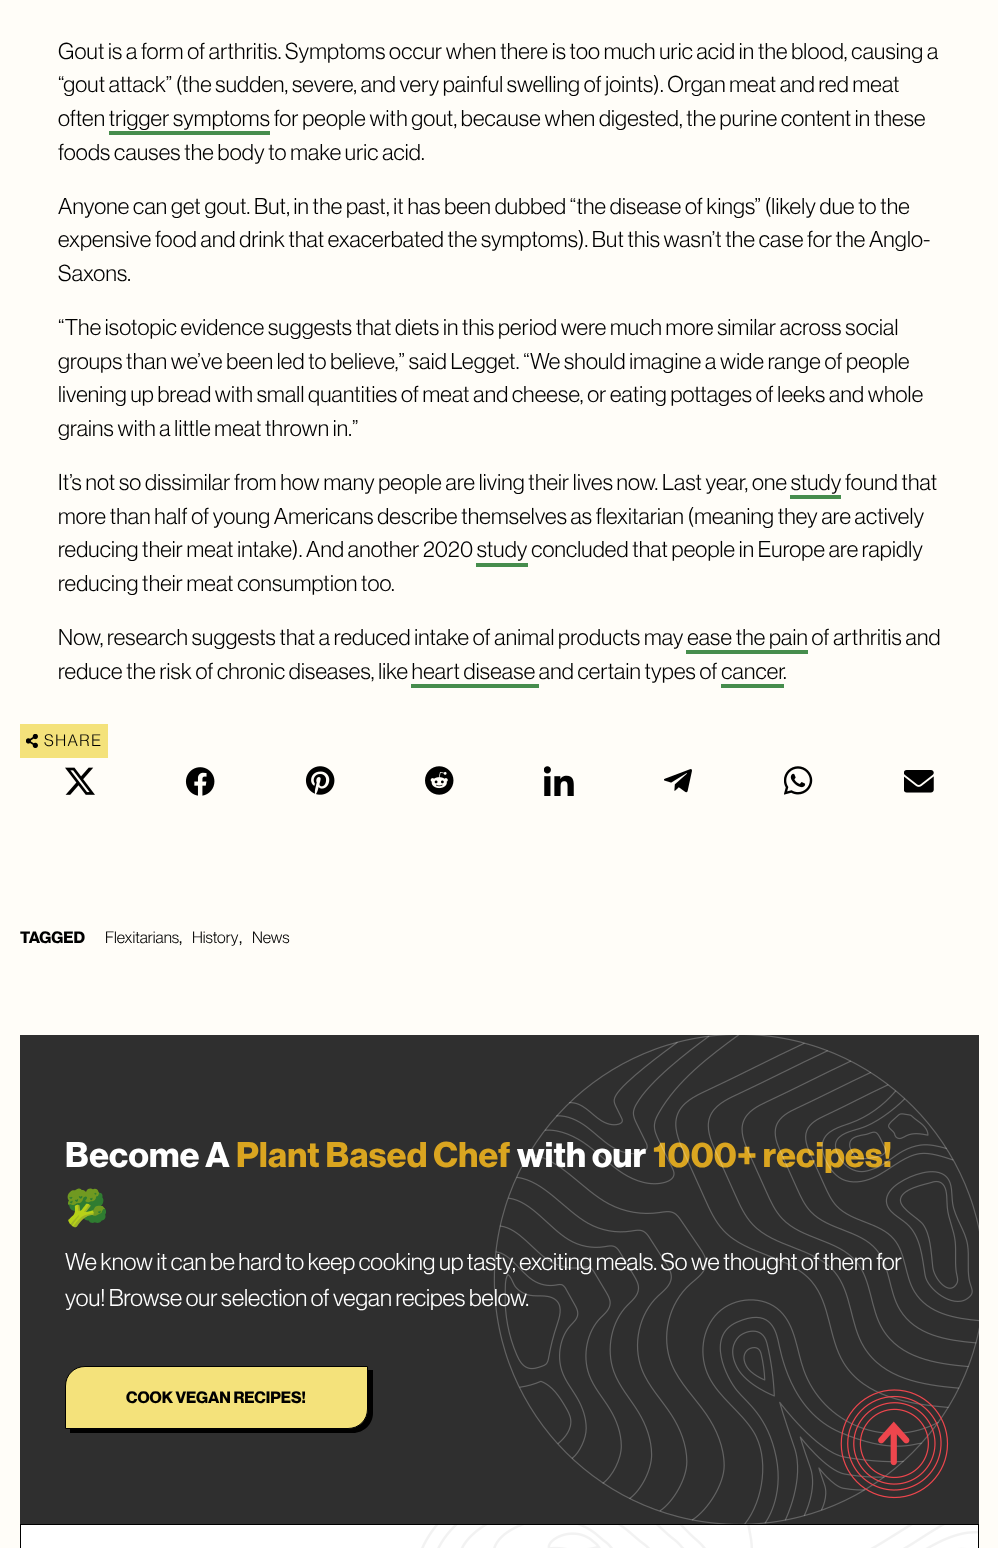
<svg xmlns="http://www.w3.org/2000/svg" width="998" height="1548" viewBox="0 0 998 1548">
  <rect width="100%" height="100%" fill="rgb(255,253,248)"/>
  <g font-family="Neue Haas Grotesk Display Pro" font-size="22.5" letter-spacing="0.2" fill="rgb(0,0,0)">
    <text>
      <tspan x="58" y="59">Gout is a form of arthritis. Symptoms occur when there is too much uric acid in the blood, causing a</tspan>
      <tspan x="58" y="92">“gout attack” (the sudden, severe, and very painful swelling of joints). Organ meat and red meat</tspan>
      <tspan x="58" y="126">often trigger symptoms for people with gout, because when digested, the purine content in these</tspan>
    </text>
  </g>
  <rect x="109" y="131" width="161" height="4" fill="rgb(70,141,77)"/>
  <g font-family="Neue Haas Grotesk Display Pro" font-size="22.5" letter-spacing="0.2" fill="rgb(0,0,0)">
    <text x="58" y="160">foods causes the body to make uric acid.</text>
    <text>
      <tspan x="58" y="214">Anyone can get gout. But, in the past, it has been dubbed “the disease of kings” (likely due to the</tspan>
      <tspan x="58" y="247">expensive food and drink that exacerbated the symptoms). But this wasn’t the case for the Anglo-</tspan>
      <tspan x="58" y="281">Saxons.</tspan>
    </text>
    <text>
      <tspan x="58" y="335">“The isotopic evidence suggests that diets in this period were much more similar across social</tspan>
      <tspan x="58" y="369">groups than we’ve been led to believe,” said Legget. “We should imagine a wide range of people</tspan>
      <tspan x="58" y="402">livening up bread with small quantities of meat and cheese, or eating pottages of leeks and whole</tspan>
      <tspan x="58" y="436">grains with a little meat thrown in.”</tspan>
    </text>
    <text x="58" y="490">It’s not so dissimilar from how many people are living their lives now. Last year, one study found that</text>
  </g>
  <rect x="790" y="495" width="51" height="4" fill="rgb(70,141,77)"/>
  <g font-family="Neue Haas Grotesk Display Pro" font-size="22.5" letter-spacing="0.2" fill="rgb(0,0,0)">
    <text>
      <tspan x="58" y="524">more than half of young Americans describe themselves as flexitarian (meaning they are actively</tspan>
      <tspan x="58" y="557">reducing their meat intake). And another 2020 study concluded that people in Europe are rapidly</tspan>
    </text>
  </g>
  <rect x="476" y="563" width="52" height="4" fill="rgb(70,141,77)"/>
  <g font-family="Neue Haas Grotesk Display Pro" font-size="22.5" letter-spacing="0.2" fill="rgb(0,0,0)">
    <text x="58" y="591">reducing their meat consumption too.</text>
    <text x="58" y="645">Now, research suggests that a reduced intake of animal products may ease the pain of arthritis and</text>
  </g>
  <rect x="686" y="650" width="122" height="4" fill="rgb(70,141,77)"/>
  <g font-family="Neue Haas Grotesk Display Pro" font-size="22.5" letter-spacing="0.2" fill="rgb(0,0,0)">
    <text x="58" y="679">reduce the risk of chronic diseases, like heart disease and certain types of cancer</text>
    <text x="783" y="679">.</text>
  </g>
  <rect x="411" y="684" width="128" height="4" fill="rgb(70,141,77)"/>
  <rect x="721" y="684" width="63" height="4" fill="rgb(70,141,77)"/>
  <rect x="20" y="724" width="88" height="34" fill="rgb(244,226,123)"/>
  <image x="26" y="734" width="12" height="14" href="pic1.png"/>
  <text x="44" y="746" font-family="Neue Haas Grotesk Display Pro" font-size="16.25" letter-spacing="1.5" fill="rgb(0,0,0)">SHARE</text>
  <image x="65" y="767" width="30" height="28" href="pic2.png"/>
  <image x="185" y="767" width="30" height="29" href="pic3.png"/>
  <image x="305" y="766" width="30" height="29" href="pic4.png"/>
  <image x="425" y="766" width="29" height="29" href="pic5.png"/>
  <image x="544" y="766" width="30" height="30" href="pic6.png"/>
  <image x="664" y="769" width="28" height="24" href="pic7.png"/>
  <image x="784" y="766" width="29" height="29" href="pic8.png"/>
  <image x="904" y="770" width="30" height="23" href="pic9.png"/>
  <text x="20" y="943" font-family="Neue Haas Grotesk Display Pro" font-size="16.25" font-weight="bold" fill="rgb(0,0,0)">TAGGED</text>
  <text x="105" y="943" font-family="Neue Haas Grotesk Display Pro" font-size="16.25" fill="rgb(0,0,0)">Flexitarians</text>
  <text x="179" y="943" font-family="Neue Haas Grotesk Display Pro" font-size="20" fill="rgb(0,0,0)">,</text>
  <text x="192" y="943" font-family="Neue Haas Grotesk Display Pro" font-size="16.25" fill="rgb(0,0,0)">History</text>
  <text x="239" y="943" font-family="Neue Haas Grotesk Display Pro" font-size="20" fill="rgb(0,0,0)">,</text>
  <text x="252" y="943" font-family="Neue Haas Grotesk Display Pro" font-size="16.25" fill="rgb(0,0,0)">News</text>
  <rect x="20" y="1035" width="959" height="489" fill="rgb(47,47,47)"/>
  <text x="236" y="1167" font-family="Neue Haas Grotesk Display Pro" font-size="35" font-weight="bold" letter-spacing="0.3" fill="rgb(218,165,32)">Plant Based Chef</text>
  <text x="517" y="1167" font-family="Neue Haas Grotesk Display Pro" font-size="35" font-weight="bold" letter-spacing="0.3" fill="rgb(255,255,255)">with our</text>
  <text x="653" y="1167" font-family="Neue Haas Grotesk Display Pro" font-size="35" font-weight="bold" letter-spacing="0.3" fill="rgb(218,165,32)">1000+ recipes!</text>
  <g font-family="Neue Haas Grotesk Display Pro" font-size="23.8" fill="rgb(255,255,255)">
    <text>
      <tspan x="65" y="1270">We know it can be hard to keep cooking up tasty, exciting meals. So we thought of them for</tspan>
      <tspan x="65" y="1306">you! Browse our selection of vegan recipes below.</tspan>
    </text>
  </g>
  <image x="493" y="1035" width="486" height="489" href="pic10.png"/>
  <text x="65" y="1167" font-family="Neue Haas Grotesk Display Pro" font-size="35" font-weight="bold" letter-spacing="0.3" fill="rgb(255,255,255)">Become A</text>
  <text x="65" y="1220" font-family="Noto Color Emoji" font-size="35" font-weight="bold" letter-spacing="0.3" fill="rgb(255,255,255)">🥦</text>
  <path d="M70 1429V1433H353C364 1433 373 1424 373 1413V1370H368V1409C368 1420 359 1429 348 1429Z" fill="rgb(0,0,0)"/>
  <path d="M85 1366.5H367.5V1409C367.5 1420 359 1428.5 348 1428.5H65.5V1386C65.5 1375 74 1366.5 85 1366.5Z" fill="rgb(244,226,123)" stroke="rgb(0,0,0)"/>
  <text x="126" y="1403" font-family="Neue Haas Grotesk Display Pro" font-size="16.25" font-weight="bold" fill="rgb(0,0,0)">COOK VEGAN RECIPES!</text>
  <rect x="20.5" y="1524.5" width="958" height="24" fill="rgb(255,255,255)" stroke="rgb(0,0,0)"/>
  <image x="421" y="1525" width="557" height="23" href="pic11.png"/>
  <image x="840" y="1389" width="109" height="110" href="pic12.png"/>
</svg>
